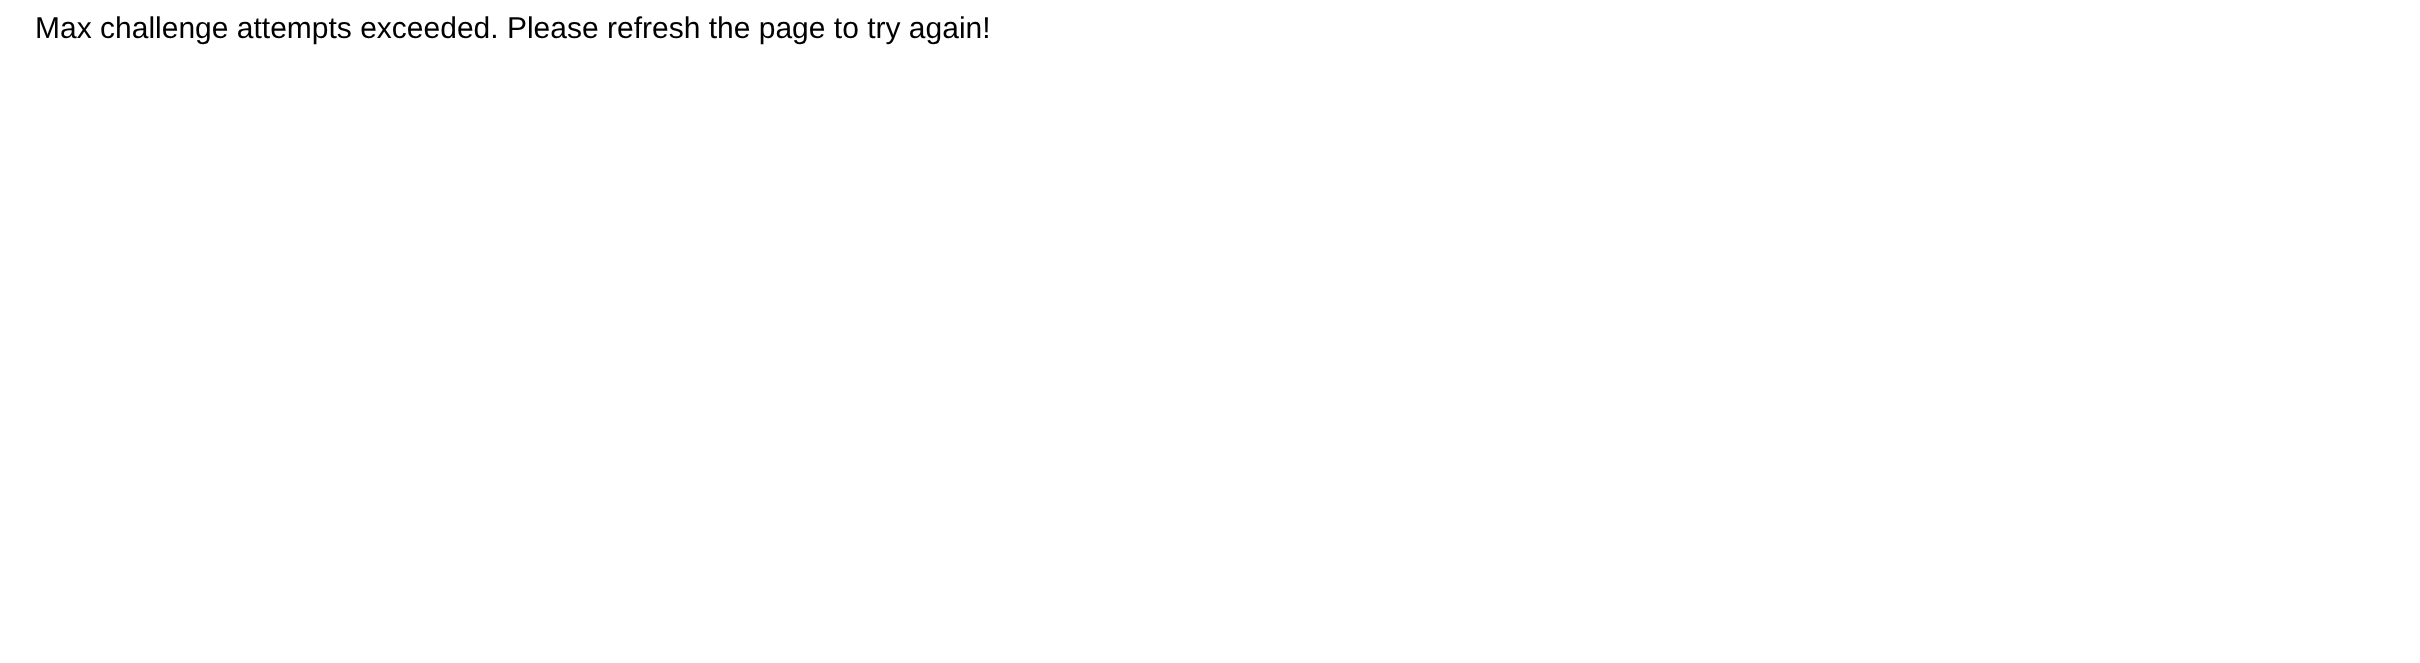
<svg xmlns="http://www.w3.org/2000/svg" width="2420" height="663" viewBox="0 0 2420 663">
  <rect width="100%" height="100%" fill="rgb(255,255,255)"/>
  <text x="35" y="38" font-family="Liberation Sans" font-size="30" fill="rgb(0,0,0)">Max challenge attempts exceeded. Please refresh the page to try again!</text>
</svg>
